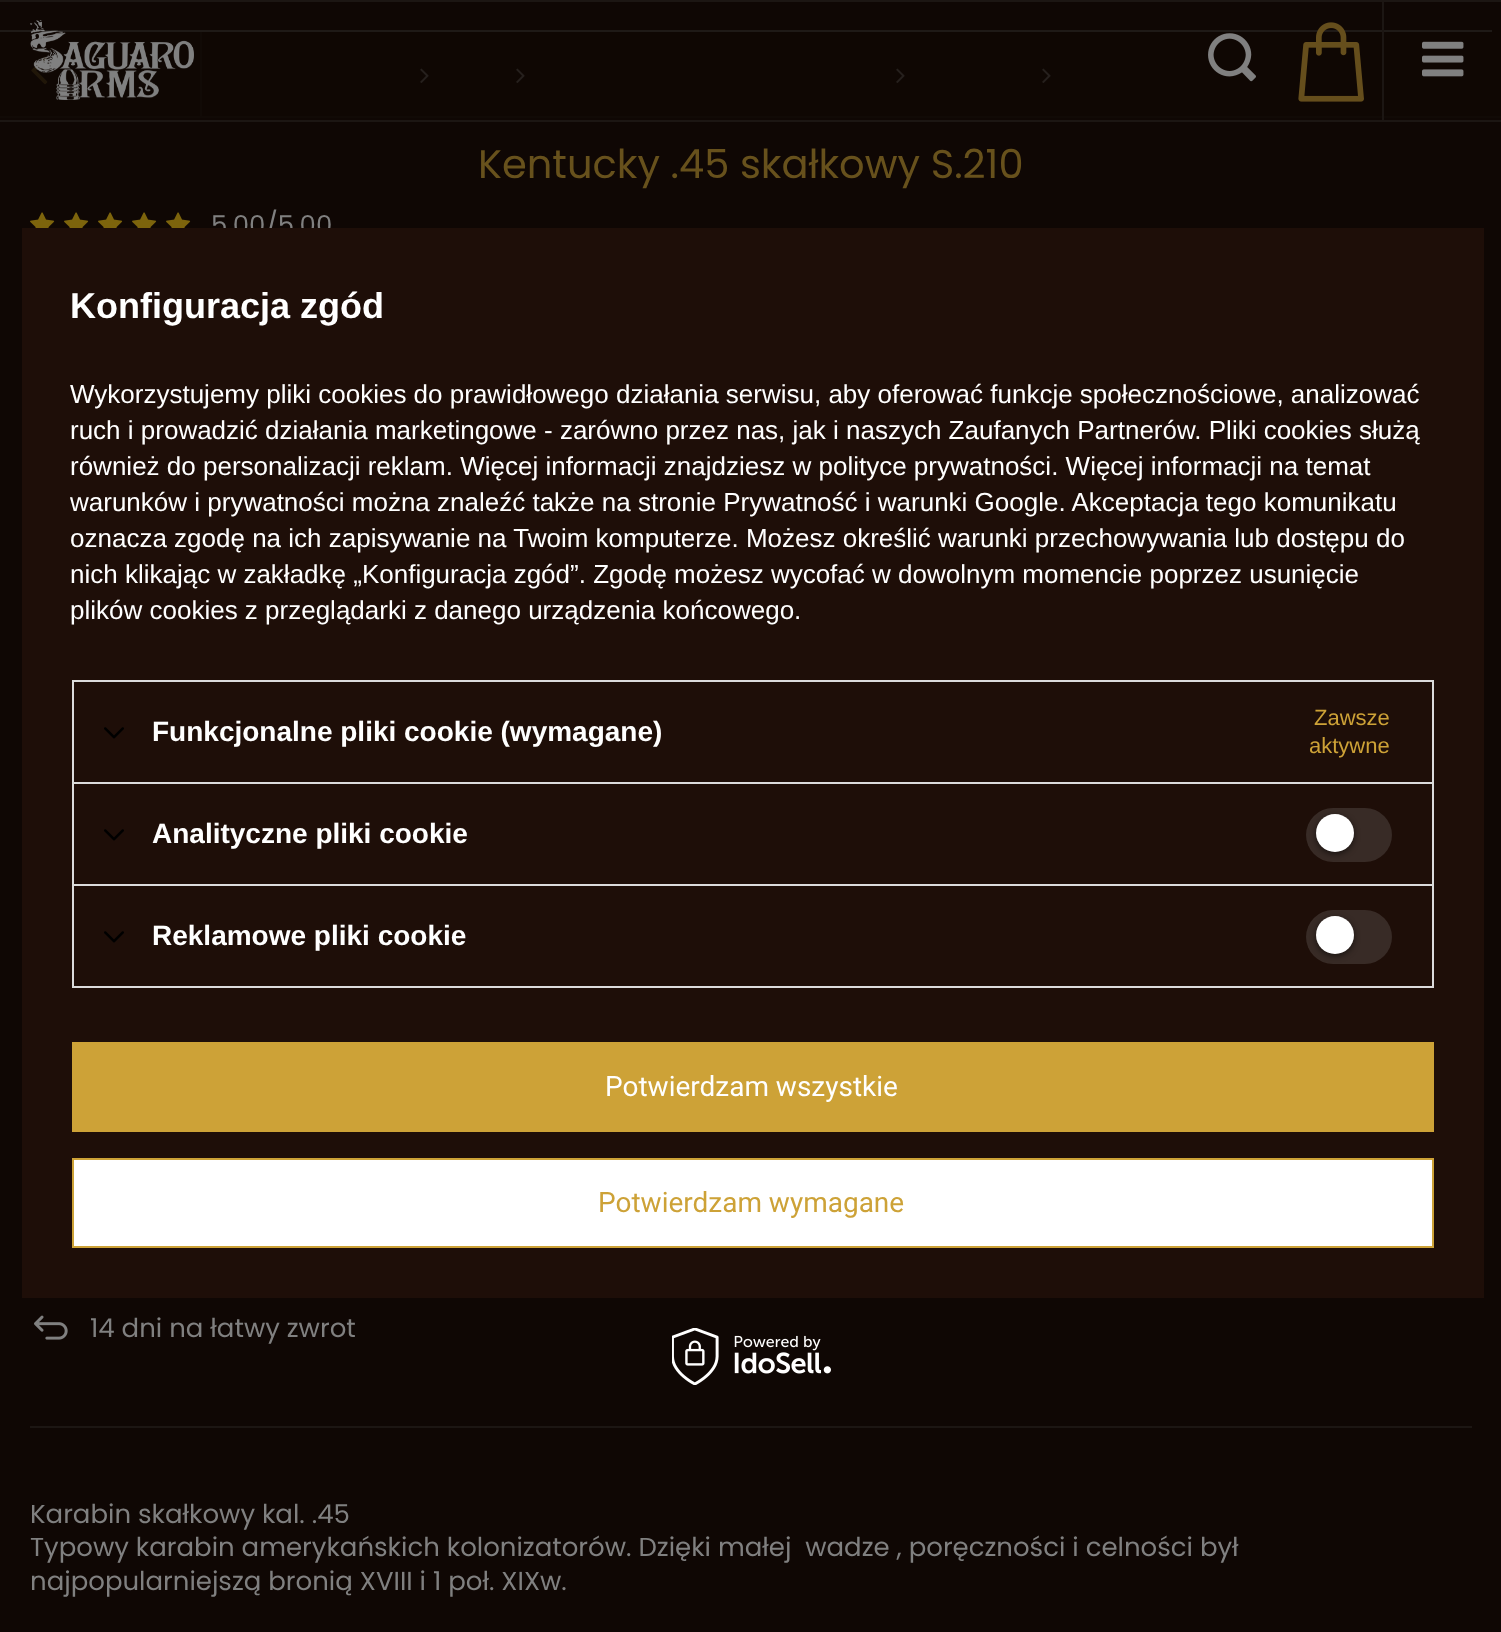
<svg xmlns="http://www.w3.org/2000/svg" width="1501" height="1632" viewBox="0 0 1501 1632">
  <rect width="100%" height="100%" fill="rgb(15,7,4)"/>
  <rect x="0" y="30" width="1492" height="2" fill="rgb(98,100,100)"/>
  <image x="31" y="56" width="17" height="29" href="pic5.png"/>
  <rect x="200" y="32" width="2" height="86" fill="rgb(28,22,19)"/>
  <image x="420" y="68" width="9" height="15" href="pic6.png"/>
  <image x="516" y="68" width="9" height="15" href="pic6.png"/>
  <image x="896" y="68" width="9" height="15" href="pic6.png"/>
  <image x="1042" y="68" width="9" height="15" href="pic6.png"/>
  <rect x="0" y="116" width="1501" height="2" fill="rgb(28,22,19)"/>
  <rect x="0" y="30" width="1501" height="88" fill="rgba(15,7,4,0.8)"/>
  <rect x="0" y="120" width="1501" height="2" fill="rgb(28,22,19)"/>
  <rect x="1382" y="0" width="2" height="120" fill="rgb(28,22,19)"/>
  <rect x="0" y="0" width="1501" height="2" fill="rgb(28,22,19)"/>
  <image x="30" y="20" width="164" height="80" href="pic1.png"/>
  <image x="1208" y="33" width="48" height="49" href="pic2.png"/>
  <image x="1298" y="22" width="66" height="80" href="pic3.png"/>
  <image x="1422" y="41" width="42" height="36" href="pic4.png"/>
  <text x="478" y="178" font-family="Poppins" font-size="40" fill="rgb(103,81,28)">Kentucky .45 skałkowy S.210</text>
  <image x="30" y="212" width="25" height="16" href="pic7.png"/>
  <image x="64" y="212" width="25" height="16" href="pic7.png"/>
  <image x="98" y="212" width="25" height="16" href="pic7.png"/>
  <image x="132" y="212" width="25" height="16" href="pic7.png"/>
  <image x="166" y="212" width="25" height="16" href="pic7.png"/>
  <text x="211" y="234" font-family="Poppins" font-size="26" fill="rgb(128,128,128)">5.00/5.00</text>
  <image x="34" y="1315" width="34" height="25" href="pic8.png"/>
  <text x="90" y="1337" font-family="Poppins" font-size="26" fill="rgb(128,128,128)">14 dni na łatwy zwrot</text>
  <rect x="30" y="1426" width="1442" height="2" fill="rgb(28,22,19)"/>
  <g font-family="Poppins" font-size="26" fill="rgb(128,128,128)">
    <text xml:space="preserve"><tspan x="30" y="1523">Karabin skałkowy kal. .45</tspan><tspan x="30" y="1556">Typowy karabin amerykańskich kolonizatorów. Dzięki małej  wadze , poręczności i celności był</tspan><tspan x="30" y="1590">najpopularniejszą bronią XVIII i 1 poł. XIXw.</tspan></text>
  </g>
  <rect x="22" y="228" width="1462" height="1070" fill="rgb(30,14,8)"/>
  <text x="70" y="318" font-family="Liberation Sans" font-size="36" font-weight="bold" fill="rgb(255,255,255)">Konfiguracja zgód</text>
  <g font-family="Liberation Sans" font-size="26" fill="rgb(255,255,255)">
    <text>
      <tspan x="70" y="403">Wykorzystujemy pliki cookies do prawidłowego działania serwisu, aby oferować funkcje społecznościowe, analizować</tspan>
      <tspan x="70" y="439">ruch i prowadzić działania marketingowe - zarówno przez nas, jak i naszych Zaufanych Partnerów. Pliki cookies służą</tspan>
      <tspan x="70" y="475">również do personalizacji reklam. Więcej informacji znajdziesz w polityce prywatności. Więcej informacji na temat</tspan>
      <tspan x="70" y="511">warunków i prywatności można znaleźć także na stronie Prywatność i warunki Google. Akceptacja tego komunikatu</tspan>
      <tspan x="70" y="547">oznacza zgodę na ich zapisywanie na Twoim komputerze. Możesz określić warunki przechowywania lub dostępu do</tspan>
      <tspan x="70" y="583">nich klikając w zakładkę „Konfiguracja zgód”. Zgodę możesz wycofać w dowolnym momencie poprzez usunięcie</tspan>
      <tspan x="70" y="619">plików cookies z przeglądarki z danego urządzenia końcowego.</tspan>
    </text>
  </g>
  <rect x="72" y="680" width="1362" height="2" fill="rgb(219,219,219)"/>
  <rect x="1432" y="680" width="2" height="102" fill="rgb(219,219,219)"/>
  <rect x="72" y="680" width="2" height="102" fill="rgb(219,219,219)"/>
  <image x="104" y="727" width="20" height="12" href="pic9.png"/>
  <text x="152" y="741" font-family="Liberation Sans" font-size="28" font-weight="bold" fill="rgb(255,255,255)">Funkcjonalne pliki cookie (wymagane)</text>
  <g font-family="Liberation Sans" font-size="22" fill="rgb(205,162,55)">
    <text x="1314" y="725">Zawsze</text>
    <text x="1309" y="753">aktywne</text>
  </g>
  <rect x="72" y="782" width="1362" height="2" fill="rgb(219,219,219)"/>
  <rect x="1432" y="782" width="2" height="102" fill="rgb(219,219,219)"/>
  <rect x="72" y="782" width="2" height="102" fill="rgb(219,219,219)"/>
  <image x="104" y="829" width="20" height="12" href="pic9.png"/>
  <text x="152" y="843" font-family="Liberation Sans" font-size="28" font-weight="bold" fill="rgb(255,255,255)">Analityczne pliki cookie</text>
  <rect x="1306" y="808" width="86" height="54" rx="27" fill="rgb(56,43,38)"/>
  <rect x="1316" y="816" width="38" height="38" rx="19" fill="rgba(0,0,0,0.56)" filter="blur(3px)"/>
  <circle cx="1335" cy="833" r="19" fill="rgb(255,255,255)"/>
  <rect x="73" y="885" width="1360" height="102" fill="none" stroke="rgb(219,219,219)" stroke-width="2"/>
  <image x="104" y="931" width="20" height="12" href="pic9.png"/>
  <text x="152" y="945" font-family="Liberation Sans" font-size="28" font-weight="bold" fill="rgb(255,255,255)">Reklamowe pliki cookie</text>
  <rect x="1306" y="910" width="86" height="54" rx="27" fill="rgb(56,43,38)"/>
  <rect x="1316" y="918" width="38" height="38" rx="19" fill="rgba(0,0,0,0.56)" filter="blur(3px)"/>
  <circle cx="1335" cy="935" r="19" fill="rgb(255,255,255)"/>
  <rect x="72" y="1042" width="1362" height="90" fill="rgb(205,162,55)"/>
  <text x="605" y="1096" font-family="Roboto" font-size="28" fill="rgb(255,255,255)">Potwierdzam wszystkie</text>
  <rect x="73" y="1159" width="1360" height="88" fill="rgb(255,255,255)" stroke="rgb(205,162,55)" stroke-width="2"/>
  <text x="598" y="1212" font-family="Roboto" font-size="28" fill="rgb(205,162,55)">Potwierdzam wymagane</text>
  <image x="672" y="1328" width="159" height="57" href="pic10.png"/>
</svg>
